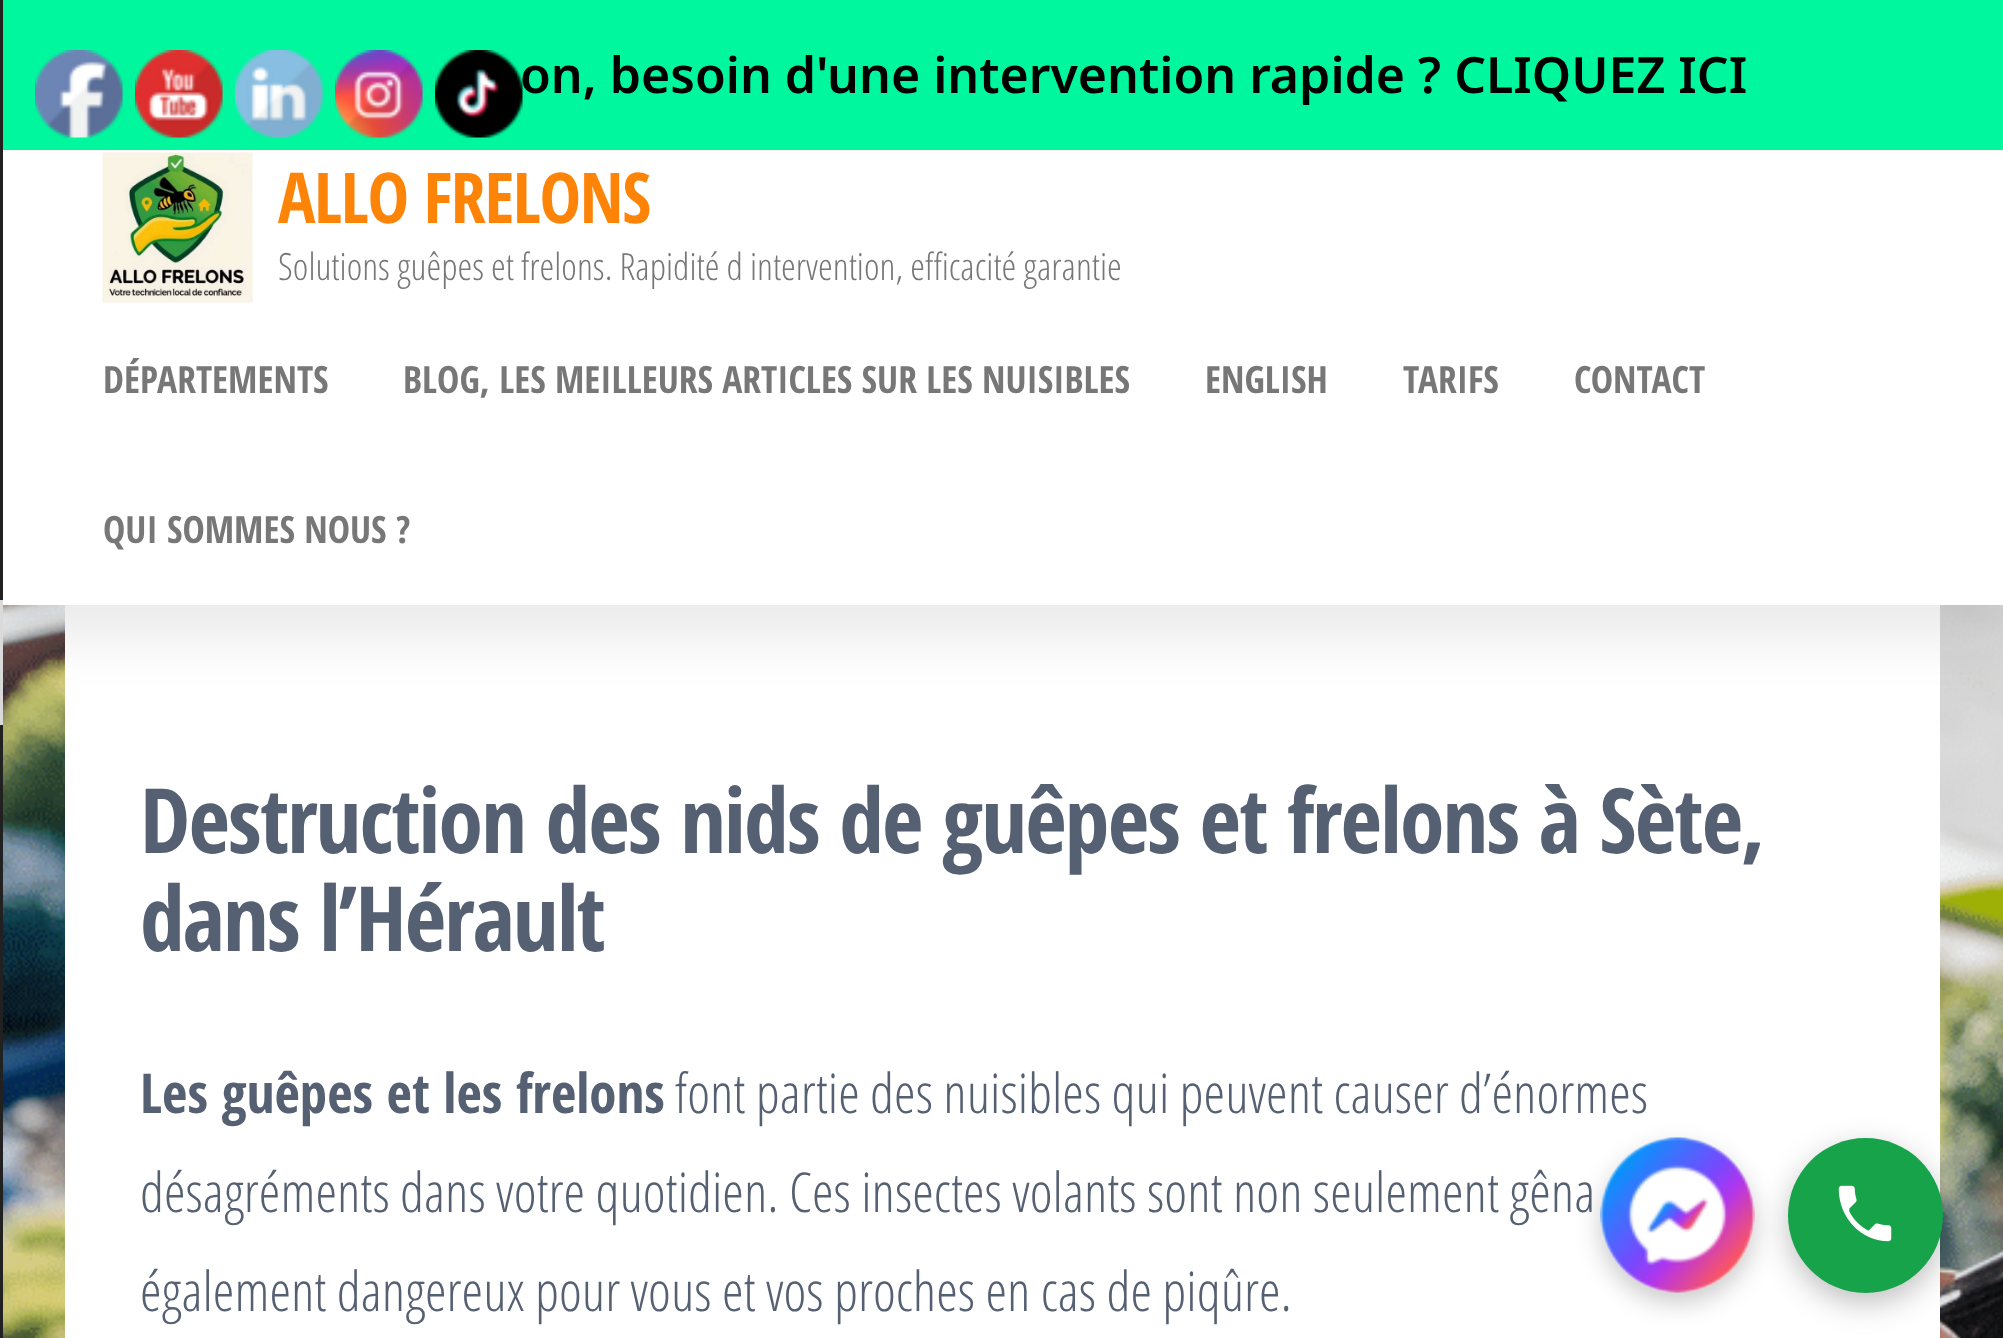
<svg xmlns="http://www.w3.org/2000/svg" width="2003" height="1338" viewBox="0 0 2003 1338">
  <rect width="100%" height="100%" fill="rgb(255,255,255)"/>
  <image x="3" y="605" width="2000" height="733" href="pic1.png"/>
  <rect x="65" y="605" width="1875" height="733" fill="rgb(255,255,255)"/>
  <rect x="0" y="185" width="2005" height="455" fill="rgba(0,0,0,0.08)" filter="blur(25px)"/>
  <rect x="0" y="0" width="3" height="1338" fill="rgb(33,33,33)"/>
  <rect x="-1.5" y="601.5" width="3" height="122" fill="none" stroke="rgb(218,218,218)" stroke-width="3"/>
  <rect x="3" y="0" width="2000" height="150" fill="rgb(0,247,158)"/>
  <image x="35" y="50" width="88" height="88" href="pic2.png"/>
  <image x="135" y="50" width="88" height="88" href="pic3.png"/>
  <image x="235" y="50" width="88" height="88" href="pic4.png"/>
  <image x="335" y="50" width="88" height="88" href="pic5.png"/>
  <text x="520" y="93" font-family="Noto Sans" font-size="50" font-weight="600" fill="rgb(0,0,0)">on, besoin d'une intervention rapide ? CLIQUEZ ICI</text>
  <image x="435" y="50" width="88" height="88" href="pic6.png"/>
  <rect x="3" y="156" width="2000" height="449" fill="rgb(255,255,255)"/>
  <image x="102" y="152" width="151" height="151" href="pic7.png"/>
  <text x="278" y="223" font-family="Open Sans Condensed" font-size="70" font-weight="bold" letter-spacing="-1.4" fill="rgb(253,132,7)">ALLO FRELONS</text>
  <text x="278" y="280" font-family="Open Sans Condensed" font-size="37.5" font-weight="300" fill="rgb(119,119,119)">Solutions guêpes et frelons. Rapidité d intervention, efficacité garantie</text>
  <g font-family="Open Sans Condensed" font-size="37.5" font-weight="bold" fill="rgb(119,119,119)">
    <text x="103" y="393">DÉPARTEMENTS</text>
    <text x="403" y="393">BLOG, LES MEILLEURS ARTICLES SUR LES NUISIBLES</text>
    <text x="1205" y="393">ENGLISH</text>
    <text x="1403" y="393">TARIFS</text>
    <text x="1574" y="393">CONTACT</text>
    <text x="103" y="543">QUI SOMMES NOUS ?</text>
  </g>
  <g font-family="Open Sans Condensed" font-size="90" font-weight="bold" letter-spacing="-1.8" fill="rgb(86,96,115)">
    <text>
      <tspan x="140" y="853">Destruction des nids de guêpes et frelons à Sète,</tspan>
      <tspan x="140" y="951">dans l’Hérault</tspan>
    </text>
  </g>
  <text x="140" y="1113" font-family="Open Sans Condensed" font-size="55" font-weight="bold" fill="rgb(86,96,115)">Les guêpes et les frelons</text>
  <g font-family="Open Sans Condensed" font-size="55" font-weight="300" fill="rgb(86,96,115)">
    <text x="675" y="1113">font partie des nuisibles qui peuvent causer d’énormes</text>
    <text>
      <tspan x="140" y="1212">désagréments dans votre quotidien. Ces insectes volants sont non seulement gêna</tspan>
      <tspan x="140" y="1311">également dangereux pour vous et vos proches en cas de piqûre.</tspan>
    </text>
  </g>
  <rect x="1600" y="1148" width="155" height="155" rx="77.5" fill="rgba(0,0,0,0.2)" filter="blur(12.5px)"/>
  <image x="1600" y="1137" width="155" height="156" href="pic9.png"/>
  <rect x="1788" y="1148" width="155" height="155" rx="77.5" fill="rgba(0,0,0,0.25)" filter="blur(15px)"/>
  <circle cx="1865.5" cy="1215.5" r="77.5" fill="rgb(22,163,74)"/>
  <image x="1838" y="1185" width="54" height="57" href="pic8.png"/>
</svg>
